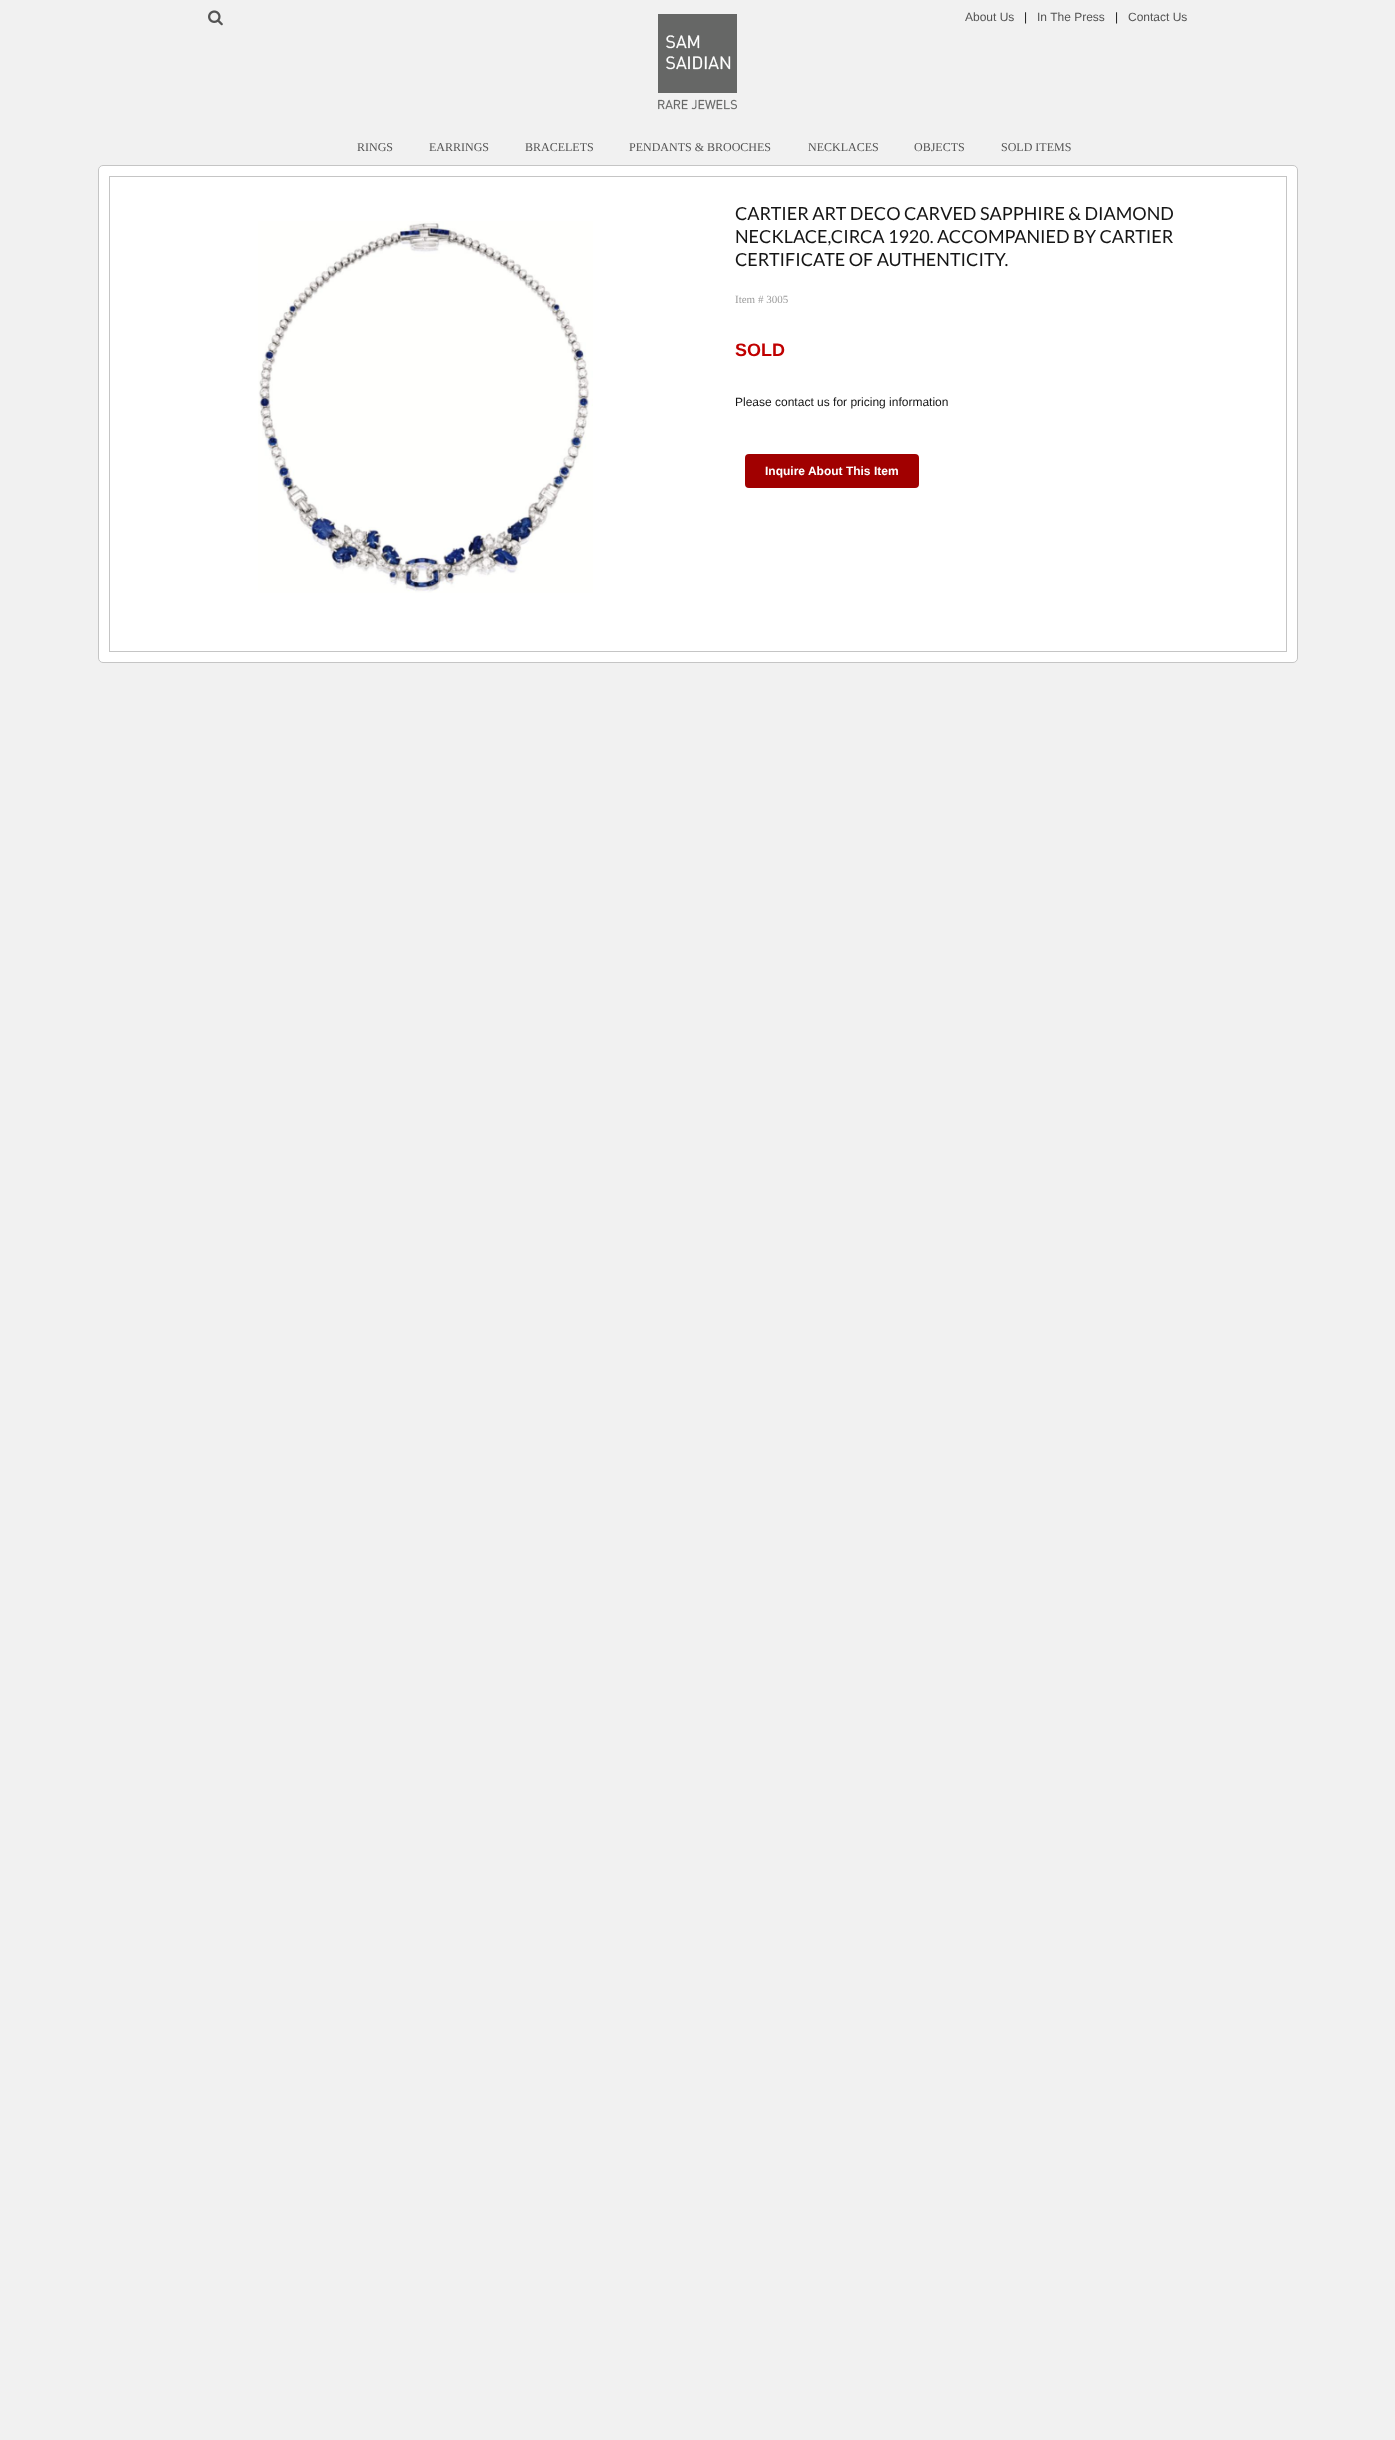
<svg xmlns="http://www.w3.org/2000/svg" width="1395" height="2440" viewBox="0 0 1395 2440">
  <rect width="100%" height="100%" fill="rgb(241,241,241)"/>
  <image x="208" y="10" width="15" height="16" href="pic1.png"/>
  <image x="658" y="14" width="79" height="96" href="pic2.png"/>
  <text x="965" y="21" font-family="Liberation Sans" font-size="12" fill="rgb(84,84,84)">About Us</text>
  <text x="1024" y="21" font-family="Liberation Sans" font-size="12" fill="rgb(21,21,21)">|</text>
  <text x="1037" y="21" font-family="Liberation Sans" font-size="12" fill="rgb(84,84,84)">In The Press</text>
  <text x="1115" y="21" font-family="Liberation Sans" font-size="12" fill="rgb(21,21,21)">|</text>
  <text x="1128" y="21" font-family="Liberation Sans" font-size="12" fill="rgb(84,84,84)">Contact Us</text>
  <g font-family="Liberation Serif" font-size="12" fill="rgb(84,84,84)">
    <text x="357" y="151">RINGS</text>
    <text x="429" y="151">EARRINGS</text>
    <text x="525" y="151">BRACELETS</text>
    <text x="629" y="151">PENDANTS &amp; BROOCHES</text>
    <text x="808" y="151">NECKLACES</text>
    <text x="914" y="151">OBJECTS</text>
    <text x="1001" y="151">SOLD ITEMS</text>
  </g>
  <rect x="98.5" y="165.5" width="1199" height="497" rx="4.5" fill="rgb(255,255,255)" stroke="rgb(197,197,197)"/>
  <rect x="109.5" y="176.5" width="1177" height="475" fill="none" stroke="rgb(197,197,197)"/>
  <image x="258" y="221" width="335" height="372" href="pic3.png"/>
  <g font-family="Lato" font-size="18" fill="rgb(21,21,21)">
    <text>
      <tspan x="735" y="220">CARTIER ART DECO CARVED SAPPHIRE &amp; DIAMOND</tspan>
      <tspan x="735" y="243">NECKLACE,CIRCA 1920. ACCOMPANIED BY CARTIER</tspan>
      <tspan x="735" y="266">CERTIFICATE OF AUTHENTICITY.</tspan>
    </text>
  </g>
  <text x="735" y="303" font-family="Liberation Serif" font-size="11" fill="rgb(157,157,157)">Item # 3005</text>
  <text x="735" y="356" font-family="Liberation Sans" font-size="18" font-weight="bold" fill="rgb(192,0,0)">SOLD</text>
  <text x="735" y="406" font-family="Liberation Sans" font-size="12" fill="rgb(21,21,21)">Please contact us for pricing information</text>
  <rect x="745" y="454" width="174" height="34" rx="4" fill="rgb(161,0,0)"/>
  <text x="765" y="475" font-family="Liberation Sans" font-size="12" font-weight="bold" fill="rgb(255,255,255)">Inquire About This Item</text>
</svg>
